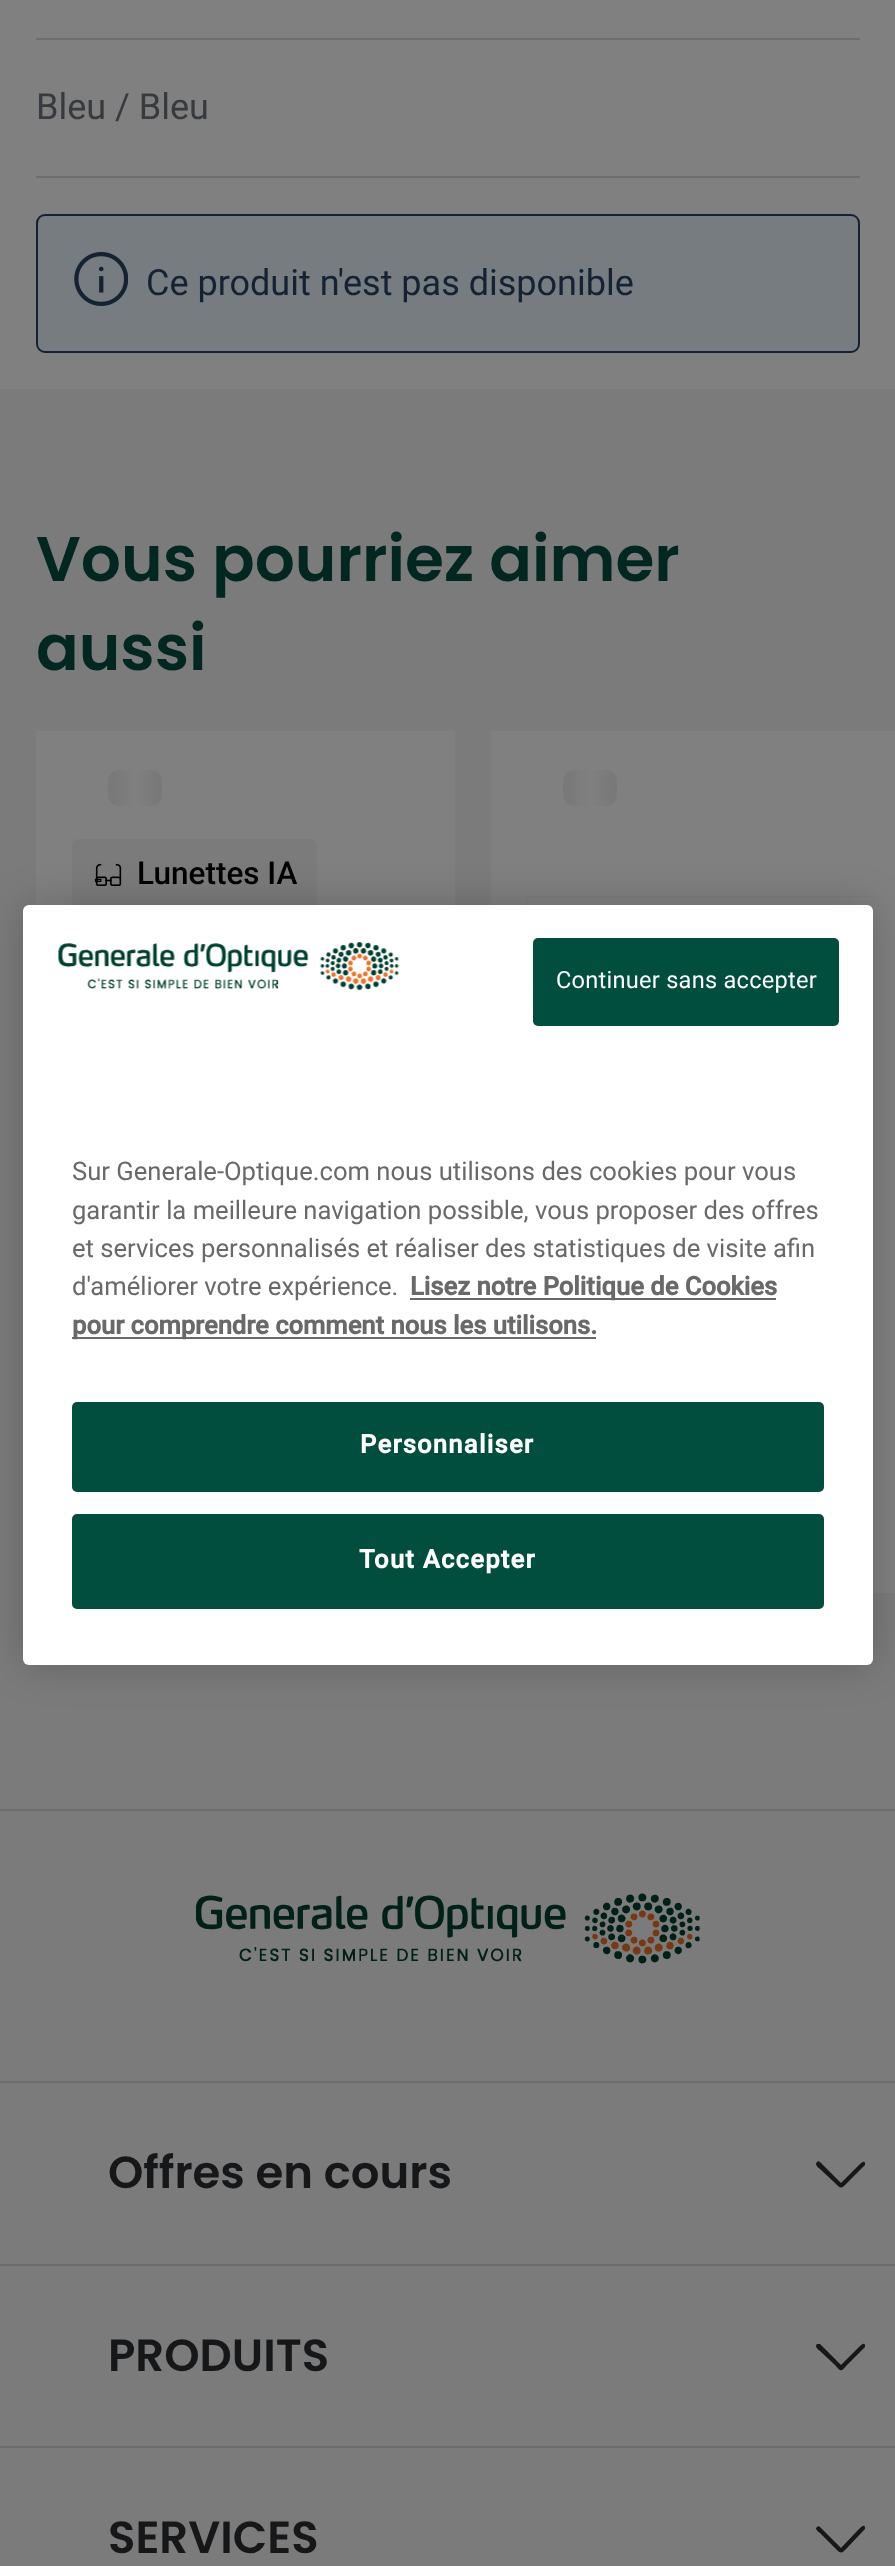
<svg xmlns="http://www.w3.org/2000/svg" width="895" height="2566" viewBox="0 0 895 2566">
  <defs>
    <linearGradient id="g1" gradientUnits="userSpaceOnUse" x1="108" y1="770" x2="162" y2="770"><stop offset="0.1" stop-color="rgb(121,121,122)"/><stop offset="0.5" stop-color="rgb(128,128,128)"/><stop offset="0.9" stop-color="rgb(121,121,122)"/></linearGradient>
    <linearGradient id="g2" gradientUnits="userSpaceOnUse" x1="563" y1="770" x2="617" y2="770"><stop offset="0.1" stop-color="rgb(121,121,122)"/><stop offset="0.5" stop-color="rgb(128,128,128)"/><stop offset="0.9" stop-color="rgb(121,121,122)"/></linearGradient>
  </defs>
  <rect width="100%" height="100%" fill="rgb(128,128,128)"/>
  <rect x="36" y="38" width="824" height="2" fill="rgb(108,109,111)"/>
  <text x="36" y="119" font-family="Roboto" font-size="36" fill="rgb(55,59,63)">Bleu / Bleu</text>
  <rect x="36" y="176" width="824" height="2" fill="rgb(108,109,111)"/>
  <rect x="37" y="215" width="822" height="137" rx="8" fill="rgb(118,124,128)" stroke="rgb(21,34,51)" stroke-width="2"/>
  <image x="74" y="252" width="54" height="54" href="pic1.png"/>
  <text x="146" y="295" font-family="Roboto" font-size="36" fill="rgb(21,34,51)">Ce produit n'est pas disponible</text>
  <rect x="0" y="389" width="895" height="1420" fill="rgb(123,123,124)"/>
  <g font-family="Poppins" font-size="63" font-weight="600" fill="rgb(1,39,32)">
    <text>
      <tspan x="36" y="581">Vous pourriez aimer</tspan>
      <tspan x="36" y="670">aussi</tspan>
    </text>
  </g>
  <rect x="36" y="731" width="419" height="174" fill="rgb(128,128,128)"/>
  <rect x="108" y="770" width="54" height="36" rx="11" fill="url(#g1)"/>
  <rect x="72" y="839" width="245" height="68" rx="7" fill="rgb(123,123,124)"/>
  <image x="94" y="863" width="28" height="23" href="pic2.png"/>
  <text x="137" y="884" font-family="Roboto" font-size="31.5" font-weight="500" fill="rgb(0,0,0)">Lunettes IA</text>
  <rect x="491" y="731" width="404" height="862" fill="rgb(128,128,128)"/>
  <rect x="563" y="770" width="54" height="36" rx="11" fill="url(#g2)"/>
  <image x="527" y="896" width="346" height="15" href="pic3.png"/>
  <rect x="0" y="1811" width="895" height="755" fill="rgb(123,123,124)"/>
  <rect x="0" y="1809" width="895" height="2" fill="rgb(108,109,111)"/>
  <image x="196" y="1893" width="504" height="71" href="pic4.png"/>
  <rect x="0" y="2081" width="895" height="2" fill="rgb(108,109,111)"/>
  <rect x="0" y="2264" width="895" height="2" fill="rgb(108,109,111)"/>
  <text x="108" y="2188" font-family="Poppins" font-size="45" font-weight="600" fill="rgb(22,23,25)">Offres en cours</text>
  <path d="M817 2162C818 2161 819 2161 820 2162L841 2183L858 2166C859 2165 864 2159 865 2163V2165L847 2183C841 2189 841 2189 835 2183L820 2169C819 2168 814 2165 817 2162Z" fill="rgb(22,23,25)" fill-rule="evenodd"/>
  <rect x="0" y="2446" width="895" height="2" fill="rgb(108,109,111)"/>
  <text x="108" y="2371" font-family="Poppins" font-size="45" font-weight="600" fill="rgb(22,23,25)">PRODUITS</text>
  <path d="M817 2344C818 2344 819 2344 820 2344L841 2365L858 2348C859 2347 864 2341 865 2345V2347L847 2365C841 2372 841 2372 835 2365L820 2351C819 2350 814 2347 817 2344Z" fill="rgb(22,23,25)" fill-rule="evenodd"/>
  <text x="108" y="2553" font-family="Poppins" font-size="45" font-weight="600" fill="rgb(22,23,25)">SERVICES</text>
  <path d="M817 2527C818 2526 819 2526 820 2527L841 2548L858 2530C859 2529 864 2523 865 2527V2529L847 2548C841 2554 841 2554 835 2548L820 2533C819 2532 814 2529 817 2527Z" fill="rgb(22,23,25)" fill-rule="evenodd"/>
  <rect x="23" y="905" width="850" height="760" rx="6" fill="rgba(0,0,0,0.2)" filter="blur(20px)"/>
  <rect x="23" y="905" width="850" height="760" rx="6" fill="rgb(255,255,255)"/>
  <image x="58" y="942" width="341" height="49" href="pic5.png"/>
  <rect x="533" y="938" width="306" height="88" rx="5" fill="rgb(1,78,63)"/>
  <text x="556" y="988" font-family="Roboto" font-size="23.6" letter-spacing="0.25" fill="rgb(255,255,255)">Continuer sans accepter</text>
  <g font-family="Roboto" font-size="25.6" fill="rgb(105,105,105)">
    <text>
      <tspan x="72" y="1180">Sur Generale-Optique.com nous utilisons des cookies pour vous</tspan>
      <tspan x="72" y="1219">garantir la meilleure navigation possible, vous proposer des offres</tspan>
      <tspan x="72" y="1257">et services personnalisés et réaliser des statistiques de visite afin</tspan>
      <tspan x="72" y="1295">d'améliorer votre expérience.</tspan>
    </text>
  </g>
  <rect x="410" y="1298" width="366" height="2" fill="rgb(105,105,105)"/>
  <text x="410" y="1295" font-family="Roboto" font-size="25.6" font-weight="bold" fill="rgb(105,105,105)">Lisez notre Politique de Cookies</text>
  <rect x="72" y="1337" width="524" height="2" fill="rgb(105,105,105)"/>
  <text x="72" y="1334" font-family="Roboto" font-size="25.6" font-weight="bold" fill="rgb(105,105,105)">pour comprendre comment nous les utilisons.</text>
  <rect x="72" y="1402" width="752" height="90" rx="5" fill="rgb(1,78,63)"/>
  <text x="360" y="1453" font-family="Roboto" font-size="25.6" font-weight="bold" letter-spacing="1.25" fill="rgb(255,255,255)">Personnaliser</text>
  <rect x="73" y="1515" width="750" height="93" rx="4" fill="rgb(1,78,63)" stroke="rgb(1,78,63)" stroke-width="2"/>
  <text x="359" y="1568" font-family="Roboto" font-size="25.6" font-weight="bold" letter-spacing="1.25" fill="rgb(255,255,255)">Tout Accepter</text>
</svg>
